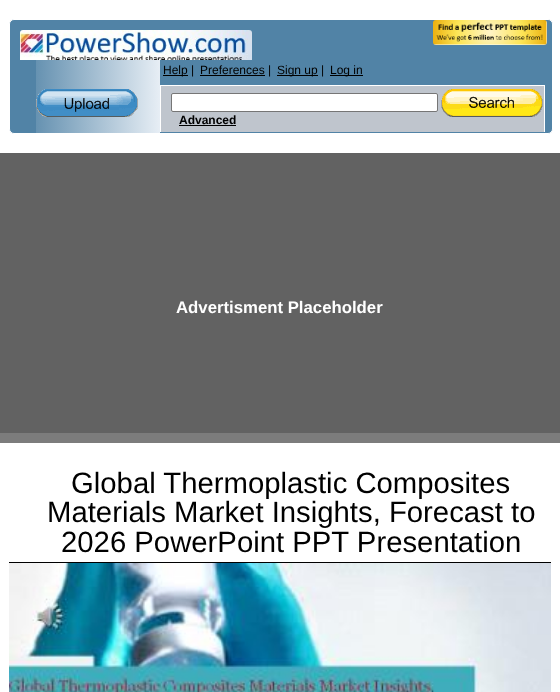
<svg xmlns="http://www.w3.org/2000/svg" width="560" height="692" viewBox="0 0 560 692">
  <defs>
    <linearGradient id="g1" gradientUnits="userSpaceOnUse" x1="36" y1="97" x2="160" y2="97"><stop offset="0" stop-color="rgb(102,146,177)"/><stop offset="1" stop-color="rgb(231,238,245)"/></linearGradient>
  </defs>
  <rect width="100%" height="100%" fill="rgb(255,255,255)"/>
  <rect x="9.5" y="19.5" width="543" height="114" rx="4.5" fill="rgb(81,131,166)" stroke="rgb(255,255,255)"/>
  <image x="20" y="30" width="232" height="30" href="pic1.png"/>
  <image x="433" y="20" width="114" height="25" href="pic2.png"/>
  <rect x="36" y="60" width="124" height="73" fill="url(#g1)"/>
  <image x="36" y="89" width="102" height="28" href="pic3.png"/>
  <rect x="163" y="75" width="25" height="1" fill="rgb(0,0,0)"/>
  <text x="163" y="74" font-family="Liberation Sans" font-size="12" fill="rgb(0,0,0)">Help |</text>
  <rect x="200" y="75" width="65" height="1" fill="rgb(0,0,0)"/>
  <text x="200" y="74" font-family="Liberation Sans" font-size="12" fill="rgb(0,0,0)">Preferences |</text>
  <rect x="277" y="75" width="41" height="1" fill="rgb(0,0,0)"/>
  <text x="277" y="74" font-family="Liberation Sans" font-size="12" fill="rgb(0,0,0)">Sign up |</text>
  <rect x="330" y="75" width="33" height="1" fill="rgb(0,0,0)"/>
  <text x="330" y="74" font-family="Liberation Sans" font-size="12" fill="rgb(0,0,0)">Log in</text>
  <rect x="161" y="86" width="383" height="46" fill="rgb(191,197,205)"/>
  <rect x="544" y="85" width="1" height="47" fill="rgb(255,255,255)"/>
  <rect x="160" y="85" width="1" height="47" fill="rgb(255,255,255)"/>
  <rect x="161" y="85" width="383" height="1" fill="rgb(255,255,255)"/>
  <rect x="171.5" y="93.5" width="266" height="18" rx="1.5" fill="rgb(255,255,255)" stroke="rgb(118,118,118)"/>
  <image x="441" y="89" width="102" height="28" href="pic4.png"/>
  <text x="179" y="124" font-family="Liberation Sans" font-size="12" font-weight="bold" fill="rgb(0,0,0)">Advanced</text>
  <rect x="179" y="125" width="57" height="1" fill="rgb(0,0,0)"/>
  <rect x="0" y="433" width="560" height="10" fill="rgb(124,124,124)"/>
  <rect x="0" y="153" width="560" height="280" fill="rgb(98,98,98)"/>
  <text x="176" y="313" font-family="Liberation Sans" font-size="16.75" font-weight="bold" fill="rgb(255,255,255)">Advertisment Placeholder</text>
  <g font-family="Liberation Sans" font-size="29.3" fill="rgb(0,0,0)">
    <text x="71" y="493">Global Thermoplastic Composites</text>
    <text x="47" y="522">Materials Market Insights, Forecast to</text>
    <text x="61" y="552">2026 PowerPoint PPT Presentation</text>
  </g>
  <rect x="9" y="562" width="542" height="1" fill="rgb(0,0,0)"/>
  <image x="9" y="563" width="542" height="129" href="pic5.png"/>
</svg>
